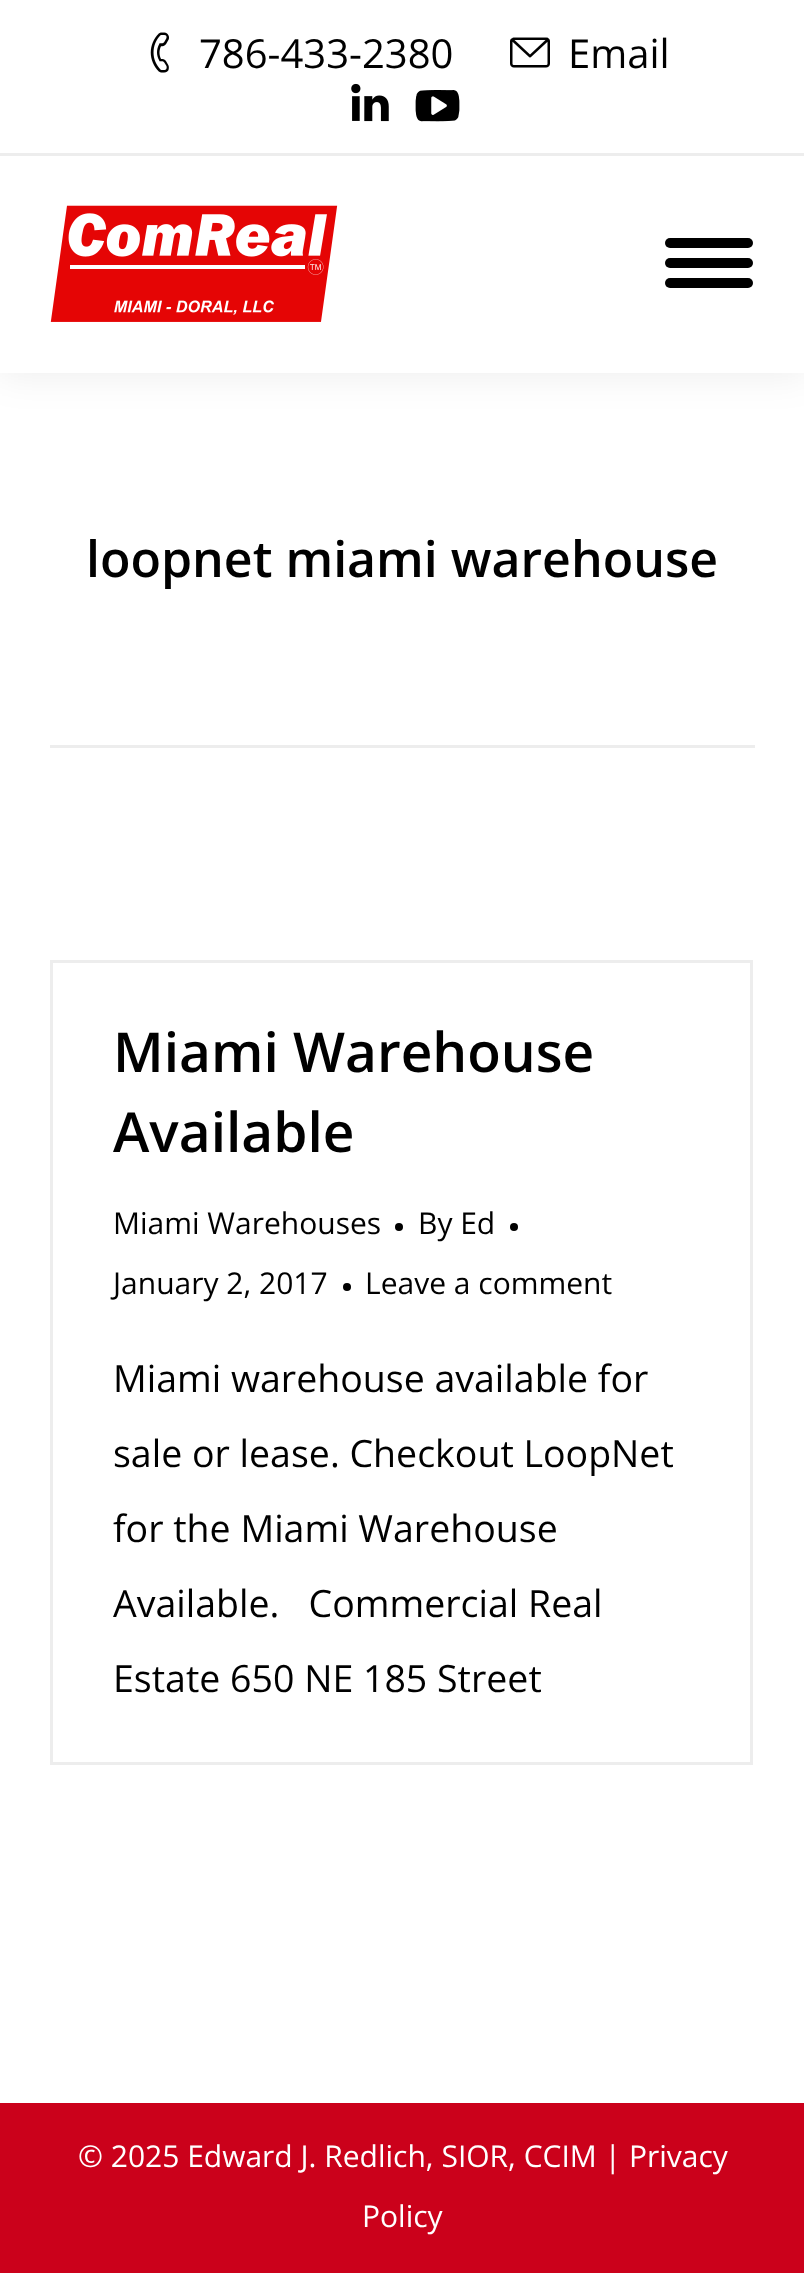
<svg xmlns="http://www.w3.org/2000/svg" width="804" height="2292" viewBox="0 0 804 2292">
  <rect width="100%" height="100%" fill="rgb(255,255,255)"/>
  <rect x="-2" y="-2" width="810" height="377" fill="rgba(0,0,0,0.07)" filter="blur(19px)"/>
  <rect x="0" y="0" width="804" height="373" fill="rgb(255,255,255)"/>
  <image x="150" y="32" width="19" height="41" href="pic1.png"/>
  <text x="199" y="68" font-family="Open Sans" font-size="40" fill="rgb(0,0,0)">786-433-2380</text>
  <image x="510" y="37" width="40" height="31" href="pic2.png"/>
  <text x="568" y="68" font-family="Open Sans" font-size="40" fill="rgb(0,0,0)">Email</text>
  <image x="351" y="83" width="38" height="39" href="pic3.png"/>
  <image x="415" y="90" width="45" height="32" href="pic4.png"/>
  <rect x="0" y="153" width="804" height="3" fill="rgb(237,237,237)"/>
  <image x="50" y="205" width="288" height="117" href="pic5.png"/>
  <rect x="665" y="238" width="88" height="10" rx="5" fill="rgb(0,0,0)"/>
  <rect x="665" y="258" width="88" height="10" rx="5" fill="rgb(0,0,0)"/>
  <rect x="665" y="278" width="88" height="10" rx="5" fill="rgb(0,0,0)"/>
  <text x="86" y="577" font-family="Open Sans" font-size="50" font-weight="600" fill="rgb(0,0,0)">loopnet miami warehouse</text>
  <rect x="50" y="745" width="705" height="3" fill="rgb(237,237,237)"/>
  <rect x="51.5" y="961.5" width="700" height="802" fill="none" stroke="rgb(237,237,237)" stroke-width="3"/>
  <g font-family="Open Sans" font-size="55" font-weight="600" fill="rgb(0,0,0)">
    <text>
      <tspan x="113" y="1072">Miami Warehouse</tspan>
      <tspan x="113" y="1152">Available</tspan>
    </text>
  </g>
  <text x="113" y="1234" font-family="Open Sans" font-size="30" fill="rgb(0,0,0)">Miami Warehouses</text>
  <circle cx="399" cy="1227" r="4" fill="rgb(0,0,0)"/>
  <text x="418" y="1234" font-family="Open Sans" font-size="30" fill="rgb(0,0,0)">By Ed</text>
  <circle cx="514" cy="1227" r="4" fill="rgb(0,0,0)"/>
  <text x="113" y="1294" font-family="Open Sans" font-size="30" fill="rgb(0,0,0)">January 2, 2017</text>
  <circle cx="347" cy="1287" r="4" fill="rgb(0,0,0)"/>
  <text x="365" y="1294" font-family="Open Sans" font-size="30" fill="rgb(0,0,0)">Leave a comment</text>
  <g font-family="Open Sans" font-size="37.5" fill="rgb(0,0,0)">
    <text x="113" y="1392">Miami warehouse available for</text>
    <text x="113" y="1467">sale or lease. Checkout LoopNet</text>
    <text x="113" y="1542">for the Miami Warehouse</text>
    <text x="113" y="1617" xml:space="preserve">Available.   Commercial Real</text>
    <text x="113" y="1692">Estate 650 NE 185 Street</text>
  </g>
  <rect x="0" y="2103" width="804" height="170" fill="rgb(203,1,27)"/>
  <g font-family="Open Sans" font-size="30" fill="rgb(255,255,255)">
    <text x="78" y="2167">© 2025 Edward J. Redlich, SIOR, CCIM | Privacy</text>
    <text x="362" y="2227">Policy</text>
  </g>
</svg>
